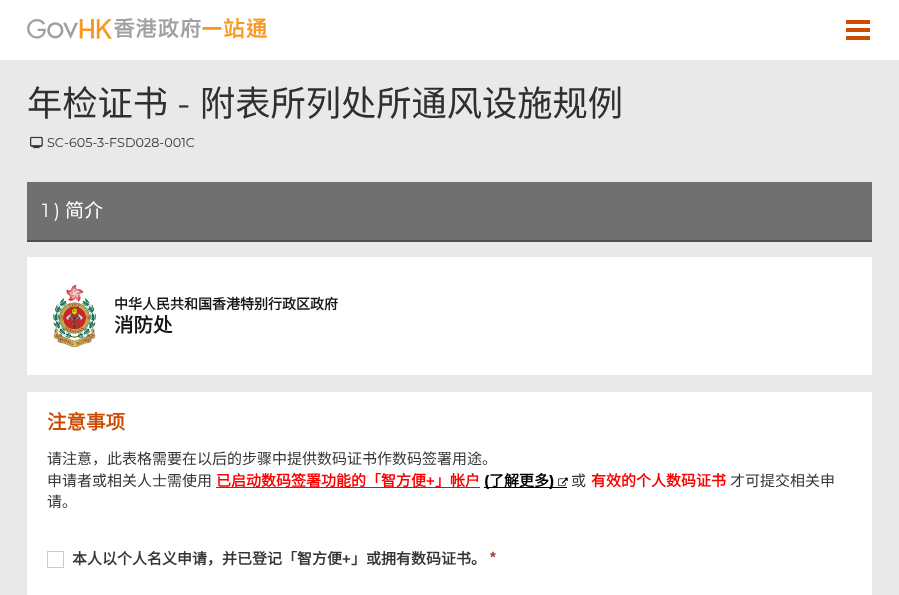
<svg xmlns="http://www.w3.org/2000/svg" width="899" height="595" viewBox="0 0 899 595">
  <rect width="100%" height="100%" fill="rgb(255,255,255)"/>
  <image x="27" y="18" width="240" height="21" href="pic1.png"/>
  <rect x="846" y="20" width="24" height="4" fill="rgb(204,76,2)"/>
  <rect x="846" y="28" width="24" height="4" fill="rgb(204,76,2)"/>
  <rect x="846" y="36" width="24" height="4" fill="rgb(204,76,2)"/>
  <rect x="0" y="60" width="899" height="535" fill="rgb(233,233,233)"/>
  <text x="27" y="116" font-family="Noto Sans CJK SC" font-size="35.25" fill="rgb(47,47,47)">年检证书</text>
  <text x="177" y="116" font-family="Montserrat" font-size="35.25" fill="rgb(47,47,47)">-</text>
  <text x="200" y="116" font-family="Noto Sans CJK SC" font-size="35.25" fill="rgb(47,47,47)">附表所列处所通风设施规例</text>
  <image x="30" y="136" width="13" height="13" href="pic2.png"/>
  <text x="47" y="147" font-family="Montserrat" font-size="12.75" fill="rgb(53,53,53)">SC-605-3-FSD028-001C</text>
  <rect x="27" y="182" width="845" height="58" fill="rgb(112,112,112)"/>
  <rect x="27" y="240" width="845" height="2" fill="rgb(80,80,80)"/>
  <text x="42" y="217" font-family="Montserrat" font-size="19" fill="rgb(255,255,255)">1 )</text>
  <text x="65" y="217" font-family="Noto Sans CJK SC" font-size="19" fill="rgb(255,255,255)">简介</text>
  <rect x="27" y="257" width="845" height="118" fill="rgb(255,255,255)"/>
  <image x="53" y="284" width="43" height="64" href="pic3.png"/>
  <text x="114" y="309" font-family="Noto Sans CJK SC" font-size="14" font-weight="bold" fill="rgb(24,23,22)">中华人民共和国香港特别行政区政府</text>
  <text x="114" y="332" font-family="Noto Sans CJK SC" font-size="19.5" font-weight="bold" fill="rgb(24,23,22)">消防处</text>
  <rect x="27" y="392" width="845" height="203" fill="rgb(255,255,255)"/>
  <text x="47" y="429" font-family="Noto Sans CJK SC" font-size="19.5" font-weight="bold" fill="rgb(204,76,2)">注意事项</text>
  <g font-family="Noto Sans CJK SC" font-size="15" fill="rgb(53,53,53)">
    <text>
      <tspan x="47" y="464">请注意，此表格需要在以后的步骤中提供数码证书作数码签署用途。</tspan>
      <tspan x="47" y="486">申请者或相关人士需使用</tspan>
    </text>
  </g>
  <rect x="216" y="487" width="264" height="1" fill="rgb(255,0,0)"/>
  <text x="216" y="486" font-family="Noto Sans CJK SC" font-size="15" font-weight="bold" fill="rgb(255,0,0)">已启动数码签署功能的「智方便</text>
  <text x="426" y="486" font-family="Liberation Sans" font-size="15" font-weight="bold" fill="rgb(255,0,0)">+</text>
  <text x="435" y="486" font-family="Noto Sans CJK SC" font-size="15" font-weight="bold" fill="rgb(255,0,0)">」帐户</text>
  <rect x="484" y="487" width="83" height="1" fill="rgb(0,0,0)"/>
  <text x="484" y="486" font-family="Montserrat" font-size="15" font-weight="bold" fill="rgb(0,0,0)">(</text>
  <text x="489" y="486" font-family="Noto Sans CJK SC" font-size="15" font-weight="bold" fill="rgb(0,0,0)">了解更多</text>
  <text x="549" y="486" font-family="Montserrat" font-size="15" font-weight="bold" fill="rgb(0,0,0)">)</text>
  <image x="558" y="477" width="10" height="10" href="pic4.png"/>
  <text x="571" y="486" font-family="Noto Sans CJK SC" font-size="15" fill="rgb(53,53,53)">或</text>
  <text x="591" y="486" font-family="Noto Sans CJK SC" font-size="15" font-weight="bold" fill="rgb(255,0,0)">有效的个人数码证书</text>
  <g font-family="Noto Sans CJK SC" font-size="15" fill="rgb(53,53,53)">
    <text x="730" y="486">才可提交相关申</text>
    <text x="47" y="507">请。</text>
  </g>
  <rect x="47.5" y="551.5" width="16" height="16" fill="none" stroke="rgb(204,204,204)"/>
  <text x="72" y="564" font-family="Noto Sans CJK SC" font-size="15" font-weight="bold" fill="rgb(53,53,53)">本人以个人名义申请，并已登记「智方便</text>
  <text x="342" y="564" font-family="Liberation Sans" font-size="15" font-weight="bold" fill="rgb(53,53,53)">+</text>
  <text x="351" y="564" font-family="Noto Sans CJK SC" font-size="15" font-weight="bold" fill="rgb(53,53,53)">」或拥有数码证书。</text>
  <text x="490" y="562" font-family="Liberation Sans" font-size="15" font-weight="bold" fill="rgb(159,58,56)">*</text>
</svg>
